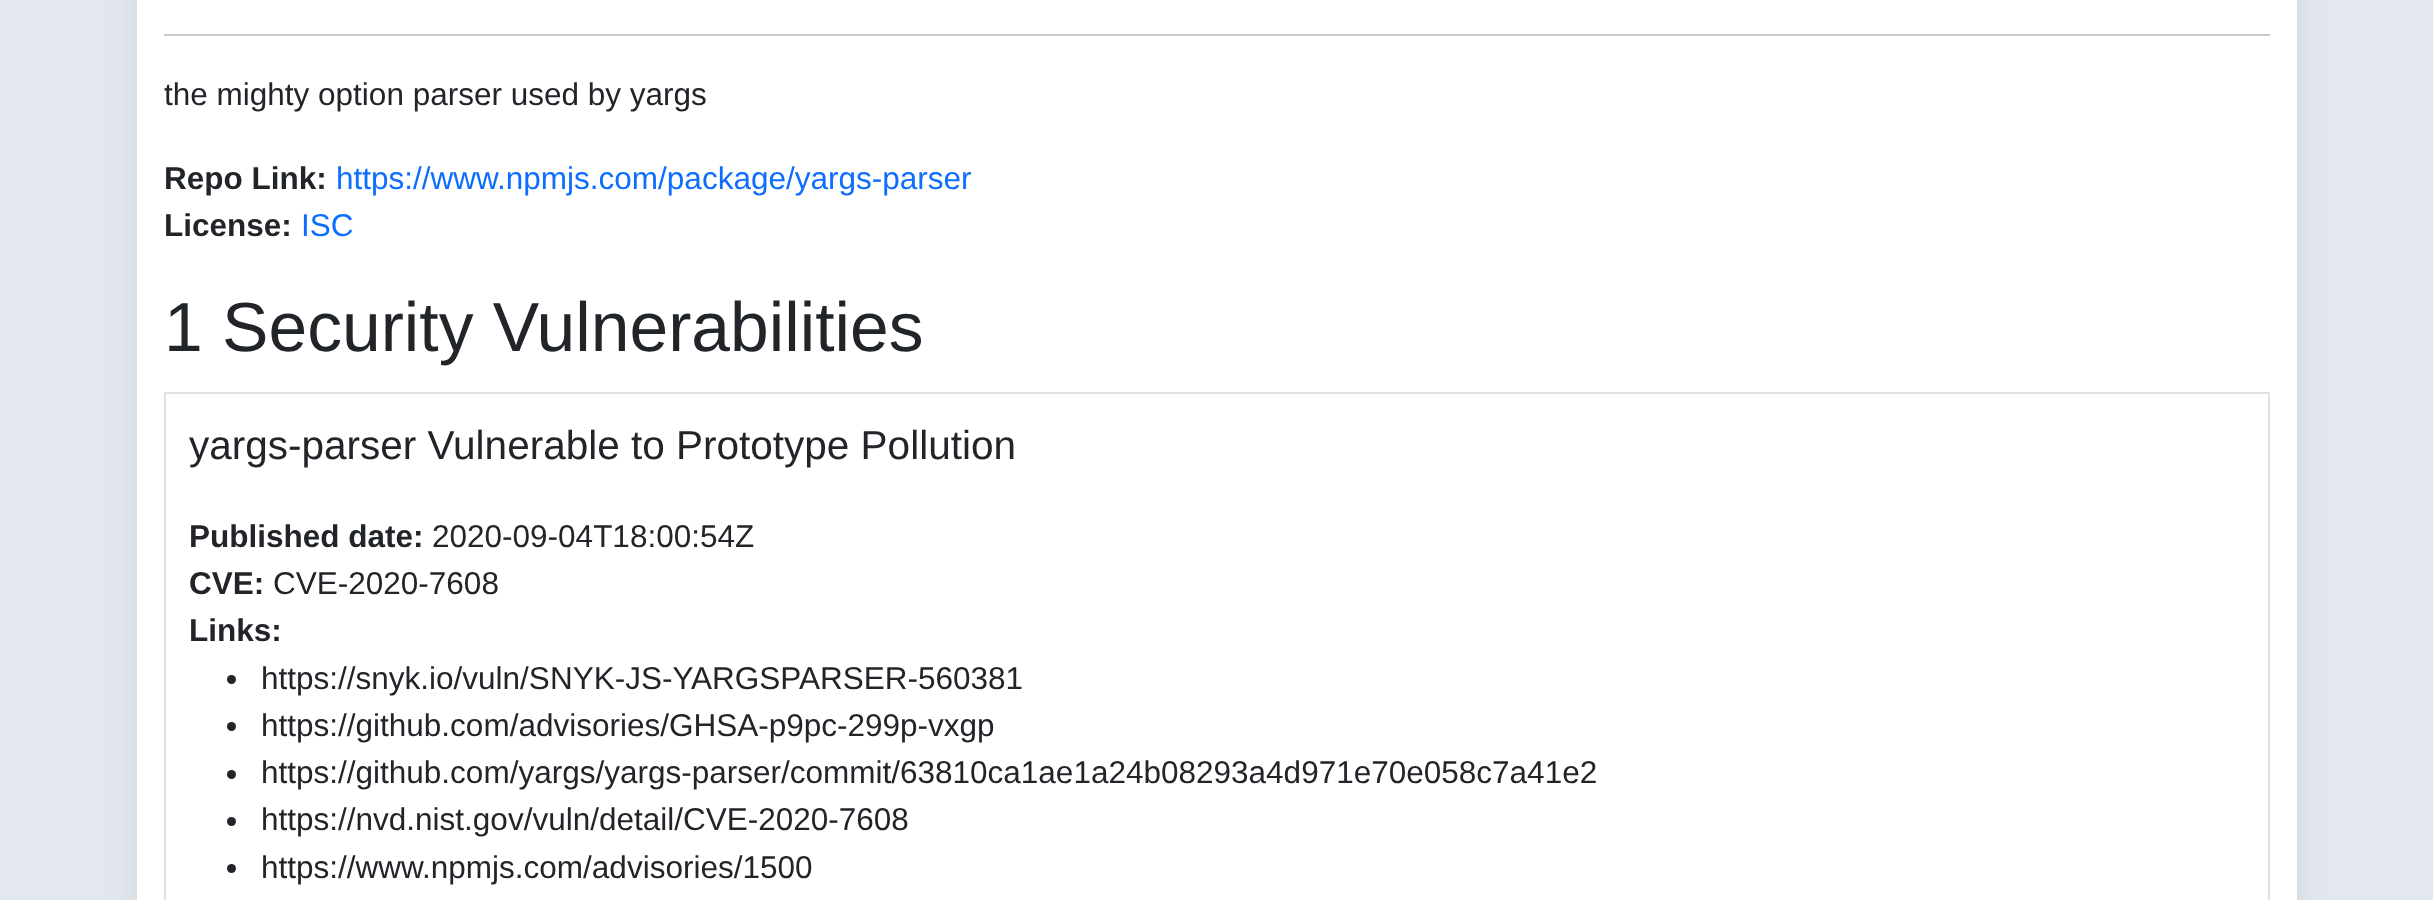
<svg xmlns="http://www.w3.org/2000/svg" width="2433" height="900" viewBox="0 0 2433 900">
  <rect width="100%" height="100%" fill="rgb(227,232,238)"/>
  <rect x="137" y="-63" width="2160" height="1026" rx="9" fill="rgba(0,0,0,0.07)" filter="blur(18px)"/>
  <rect x="137" y="0" width="2160" height="900" fill="rgb(255,255,255)"/>
  <rect x="164" y="34" width="2106" height="2" fill="rgb(200,201,202)"/>
  <text x="164" y="105" font-family="Liberation Sans" font-size="31.5" fill="rgb(33,37,41)">the mighty option parser used by yargs</text>
  <text x="164" y="189" font-family="Liberation Sans" font-size="31.5" font-weight="bold" fill="rgb(33,37,41)">Repo Link:</text>
  <text x="336" y="189" font-family="Liberation Sans" font-size="31.5" fill="rgb(13,110,253)">https://www.npmjs.com/package/yargs-parser</text>
  <text x="164" y="236" font-family="Liberation Sans" font-size="31.5" font-weight="bold" fill="rgb(33,37,41)">License:</text>
  <text x="301" y="236" font-family="Liberation Sans" font-size="31.5" fill="rgb(13,110,253)">ISC</text>
  <text x="164" y="351" font-family="Liberation Sans" font-size="69.6" fill="rgb(33,37,41)">1 Security Vulnerabilities</text>
  <rect x="165" y="393" width="2104" height="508" fill="none" stroke="rgb(222,226,230)" stroke-width="2"/>
  <text x="189" y="459" font-family="Liberation Sans" font-size="40.5" fill="rgb(33,37,41)">yargs-parser Vulnerable to Prototype Pollution</text>
  <text x="189" y="547" font-family="Liberation Sans" font-size="31.5" font-weight="bold" fill="rgb(33,37,41)">Published date:</text>
  <text x="432" y="547" font-family="Liberation Sans" font-size="31.5" fill="rgb(33,37,41)">2020-09-04T18:00:54Z</text>
  <text x="189" y="594" font-family="Liberation Sans" font-size="31.5" font-weight="bold" fill="rgb(33,37,41)">CVE:</text>
  <text x="273" y="594" font-family="Liberation Sans" font-size="31.5" fill="rgb(33,37,41)">CVE-2020-7608</text>
  <text x="189" y="641" font-family="Liberation Sans" font-size="31.5" font-weight="bold" fill="rgb(33,37,41)">Links:</text>
  <circle cx="231.5" cy="679.5" r="4.5" fill="rgb(33,37,41)"/>
  <text x="261" y="689" font-family="Liberation Sans" font-size="31.5" fill="rgb(33,37,41)">https://snyk.io/vuln/SNYK-JS-YARGSPARSER-560381</text>
  <circle cx="231.5" cy="726.5" r="4.5" fill="rgb(33,37,41)"/>
  <text x="261" y="736" font-family="Liberation Sans" font-size="31.5" fill="rgb(33,37,41)">https://github.com/advisories/GHSA-p9pc-299p-vxgp</text>
  <circle cx="231.5" cy="774.5" r="4.5" fill="rgb(33,37,41)"/>
  <text x="261" y="783" font-family="Liberation Sans" font-size="31.5" fill="rgb(33,37,41)">https://github.com/yargs/yargs-parser/commit/63810ca1ae1a24b08293a4d971e70e058c7a41e2</text>
  <circle cx="231.5" cy="821.5" r="4.5" fill="rgb(33,37,41)"/>
  <text x="261" y="830" font-family="Liberation Sans" font-size="31.5" fill="rgb(33,37,41)">https://nvd.nist.gov/vuln/detail/CVE-2020-7608</text>
  <circle cx="231.5" cy="868.5" r="4.5" fill="rgb(33,37,41)"/>
  <text x="261" y="878" font-family="Liberation Sans" font-size="31.5" fill="rgb(33,37,41)">https://www.npmjs.com/advisories/1500</text>
</svg>
